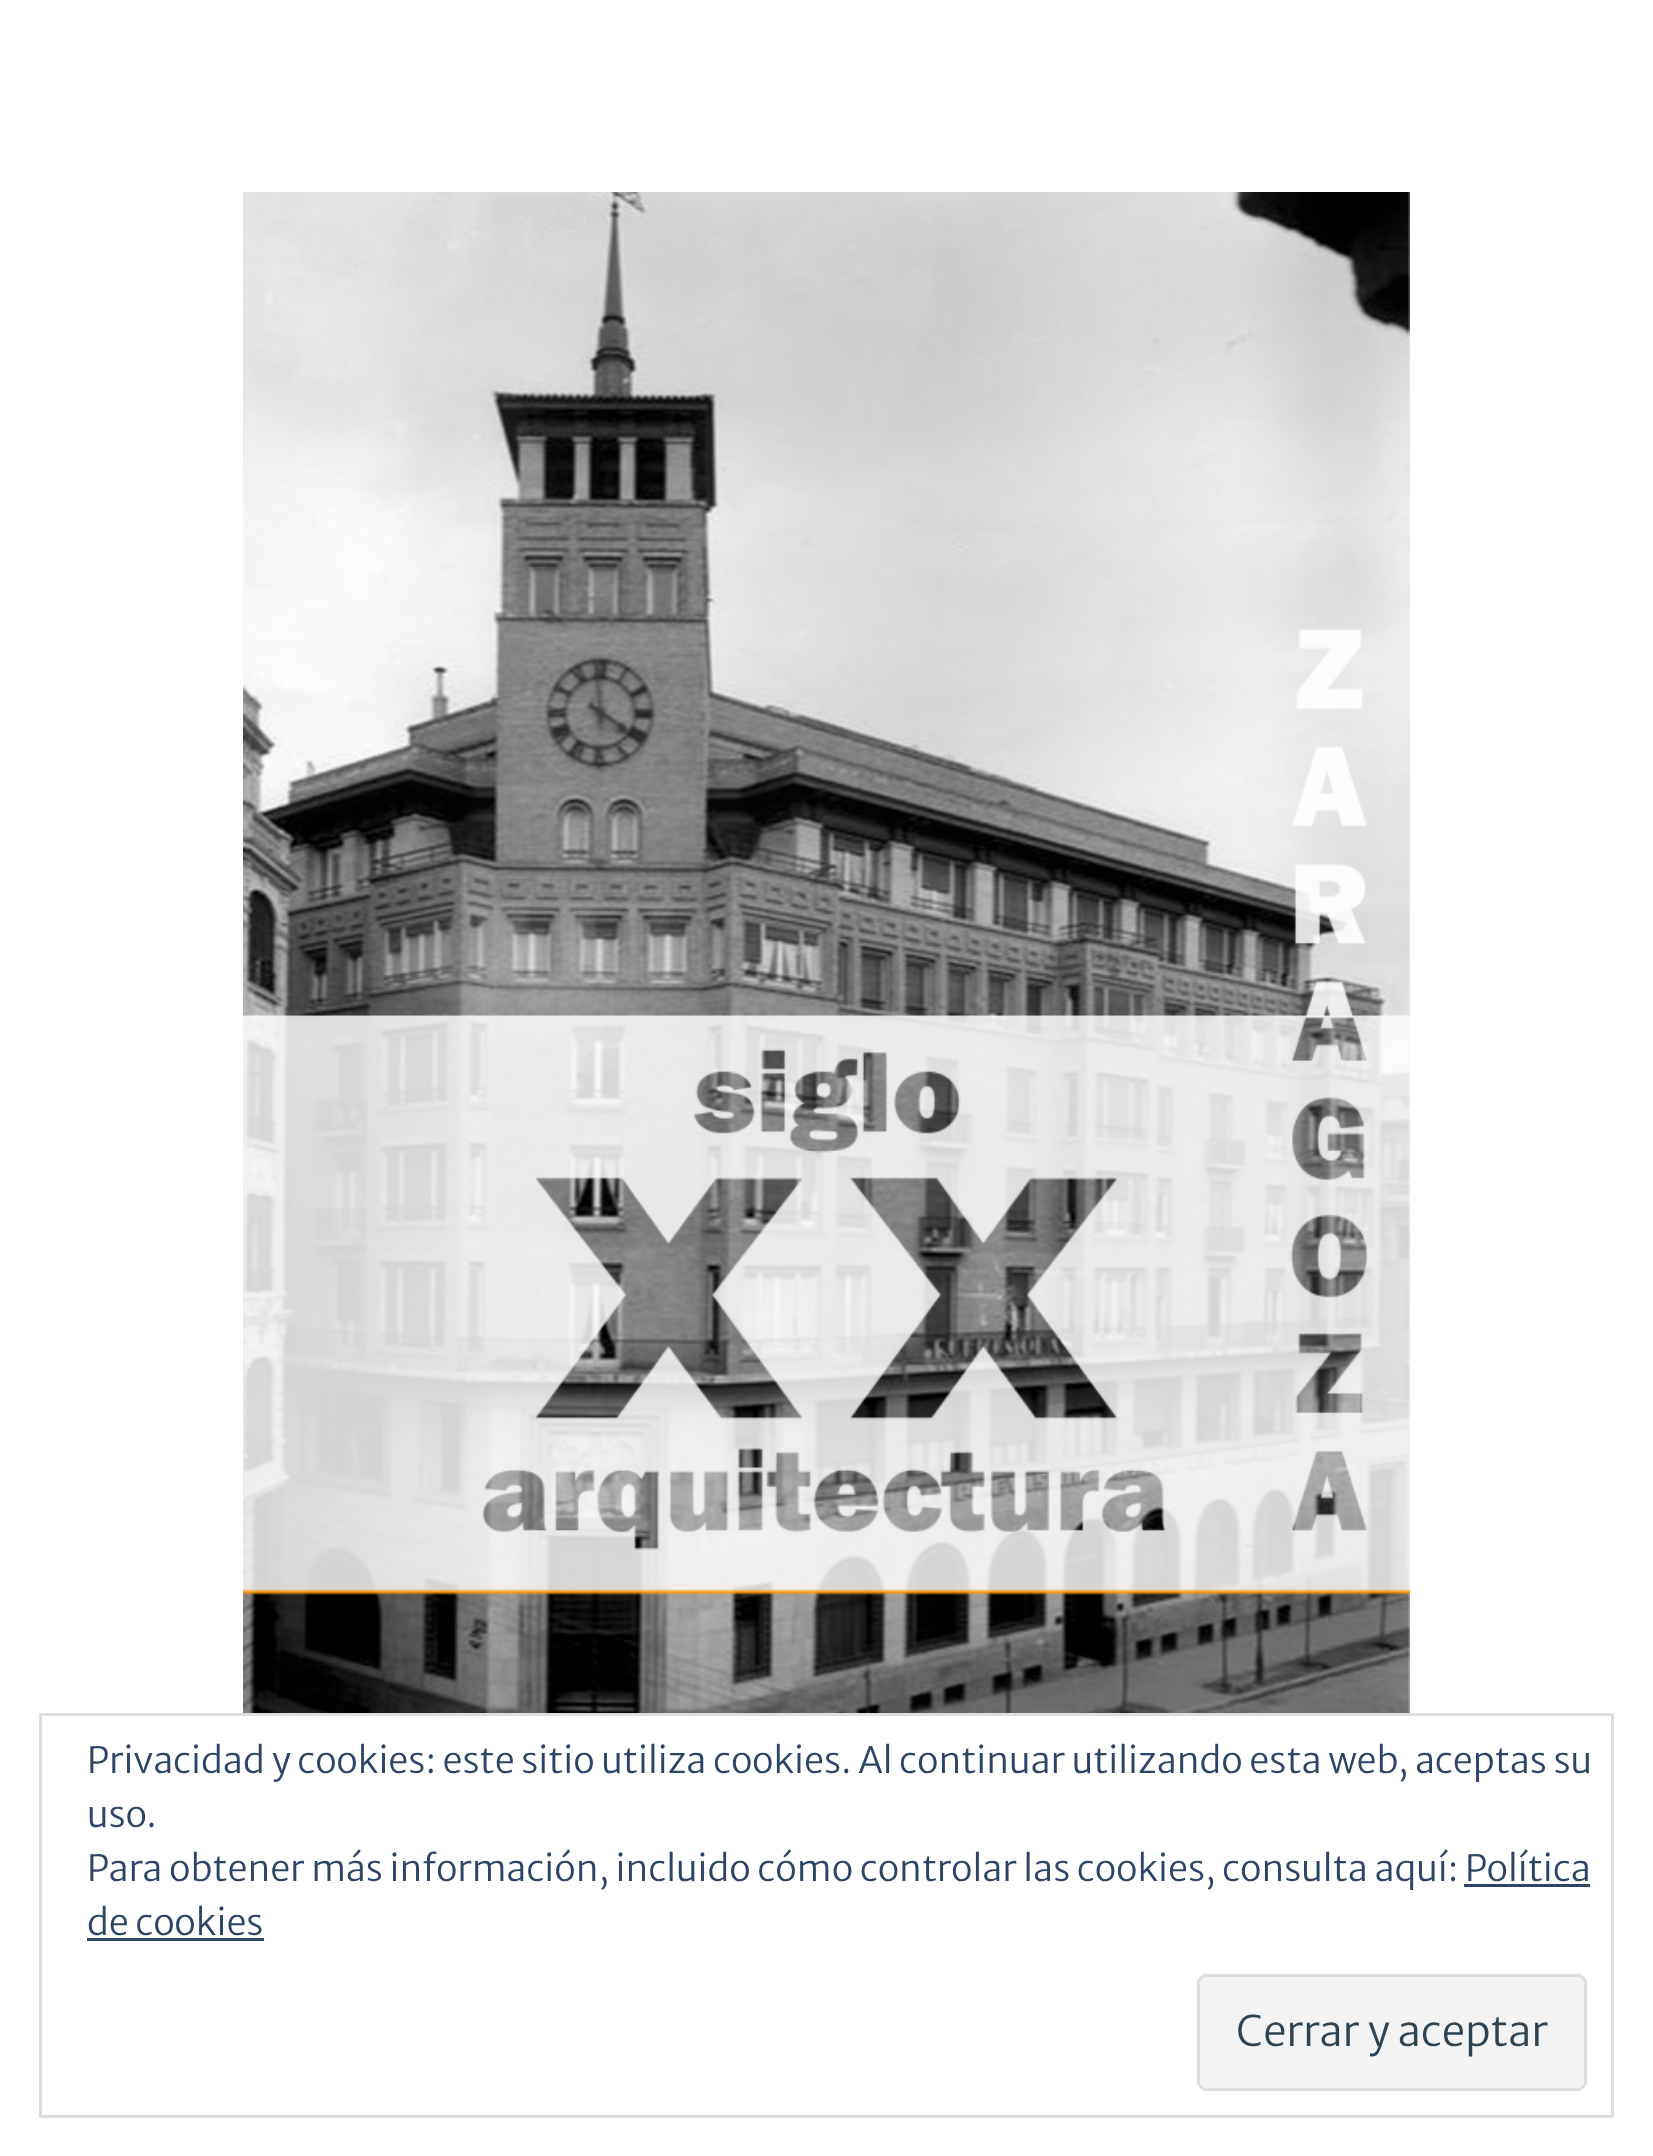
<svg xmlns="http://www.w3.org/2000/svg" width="1653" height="2156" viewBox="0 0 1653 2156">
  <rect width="100%" height="100%" fill="rgb(255,255,255)"/>
  <image x="243" y="192" width="1167" height="1521" href="pic1.png"/>
  <rect x="40.5" y="1714.5" width="1572" height="402" fill="none" stroke="rgb(222,222,222)" stroke-width="3"/>
  <g font-family="Merriweather Sans" font-size="36" font-weight="300" fill="rgb(46,68,103)">
    <text>
      <tspan x="87" y="1773">Privacidad y cookies: este sitio utiliza cookies. Al continuar utilizando esta web, aceptas su</tspan>
      <tspan x="87" y="1827">uso.</tspan>
      <tspan x="87" y="1881">Para obtener más información, incluido cómo controlar las cookies, consulta aquí: Política</tspan>
      <tspan x="87" y="1935">de cookies</tspan>
    </text>
  </g>
  <rect x="1464" y="1884" width="126" height="3" fill="rgb(46,68,103)"/>
  <rect x="87" y="1938" width="177" height="3" fill="rgb(46,68,103)"/>
  <rect x="1198.5" y="1975.5" width="387" height="114" rx="7.5" fill="rgb(243,243,243)" stroke="rgb(222,222,222)" stroke-width="3"/>
  <text x="1236" y="2046" font-family="Merriweather Sans" font-size="42" font-weight="300" fill="rgb(46,68,83)">Cerrar y aceptar</text>
</svg>
